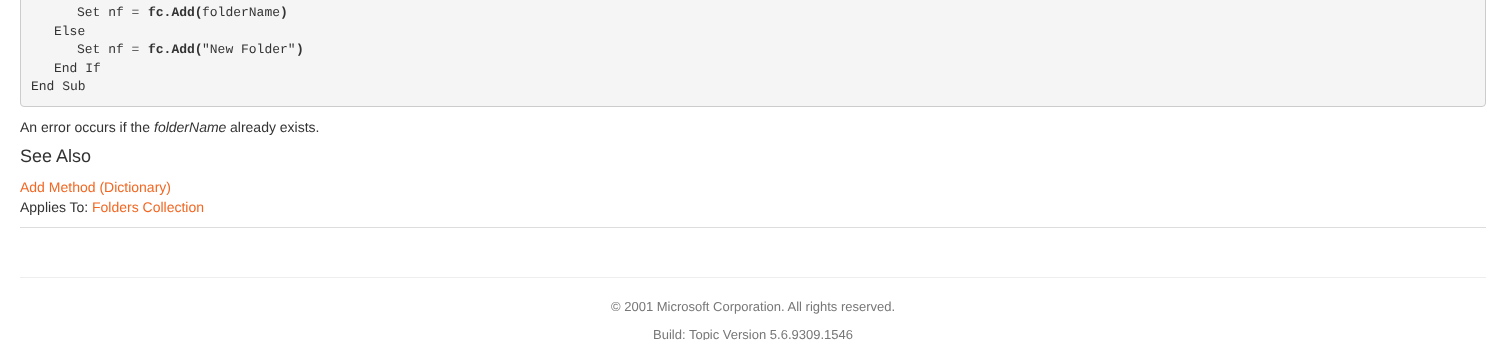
<svg xmlns="http://www.w3.org/2000/svg" width="1506" height="340" viewBox="0 0 1506 340">
  <rect width="100%" height="100%" fill="rgb(255,255,255)"/>
  <rect x="20.5" y="-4.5" width="1465" height="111" rx="3.5" fill="rgb(245,245,245)" stroke="rgb(204,204,204)"/>
  <text x="77" y="16" font-family="Liberation Mono" font-size="13" fill="rgb(51,51,51)">Set nf =</text>
  <text x="148" y="16" font-family="Liberation Mono" font-size="13" font-weight="bold" fill="rgb(51,51,51)">fc.Add(</text>
  <text x="202" y="16" font-family="Liberation Mono" font-size="13" fill="rgb(51,51,51)">folderName</text>
  <text x="280" y="16" font-family="Liberation Mono" font-size="13" font-weight="bold" fill="rgb(51,51,51)">)</text>
  <g font-family="Liberation Mono" font-size="13" fill="rgb(51,51,51)">
    <text x="54" y="35">Else</text>
    <text x="77" y="53">Set nf =</text>
  </g>
  <text x="148" y="53" font-family="Liberation Mono" font-size="13" font-weight="bold" fill="rgb(51,51,51)">fc.Add(</text>
  <text x="202" y="53" font-family="Liberation Mono" font-size="13" fill="rgb(51,51,51)">"New Folder"</text>
  <text x="296" y="53" font-family="Liberation Mono" font-size="13" font-weight="bold" fill="rgb(51,51,51)">)</text>
  <g font-family="Liberation Mono" font-size="13" fill="rgb(51,51,51)">
    <text x="54" y="72">End If</text>
    <text x="31" y="90">End Sub</text>
  </g>
  <text x="20" y="132" font-family="Liberation Sans" font-size="14" fill="rgb(51,51,51)">An error occurs if the</text>
  <text x="154" y="132" font-family="Liberation Sans" font-size="14" font-style="italic" fill="rgb(51,51,51)">folderName</text>
  <text x="230" y="132" font-family="Liberation Sans" font-size="14" fill="rgb(51,51,51)">already exists.</text>
  <text x="20" y="162" font-family="Liberation Sans" font-size="18" fill="rgb(51,51,51)">See Also</text>
  <text x="20" y="192" font-family="Liberation Sans" font-size="14" fill="rgb(242,103,34)">Add Method (Dictionary)</text>
  <text x="20" y="212" font-family="Liberation Sans" font-size="14" fill="rgb(51,51,51)">Applies To:</text>
  <text x="92" y="212" font-family="Liberation Sans" font-size="14" fill="rgb(242,103,34)">Folders Collection</text>
  <rect x="20" y="227" width="1466" height="1" fill="rgb(221,221,221)"/>
  <rect x="20" y="277" width="1466" height="1" fill="rgb(238,238,238)"/>
  <g font-family="Liberation Sans" font-size="13" fill="rgb(119,119,119)">
    <text x="611" y="311">© 2001 Microsoft Corporation. All rights reserved.</text>
    <text x="653" y="339">Build: Topic Version 5.6.9309.1546</text>
  </g>
</svg>
